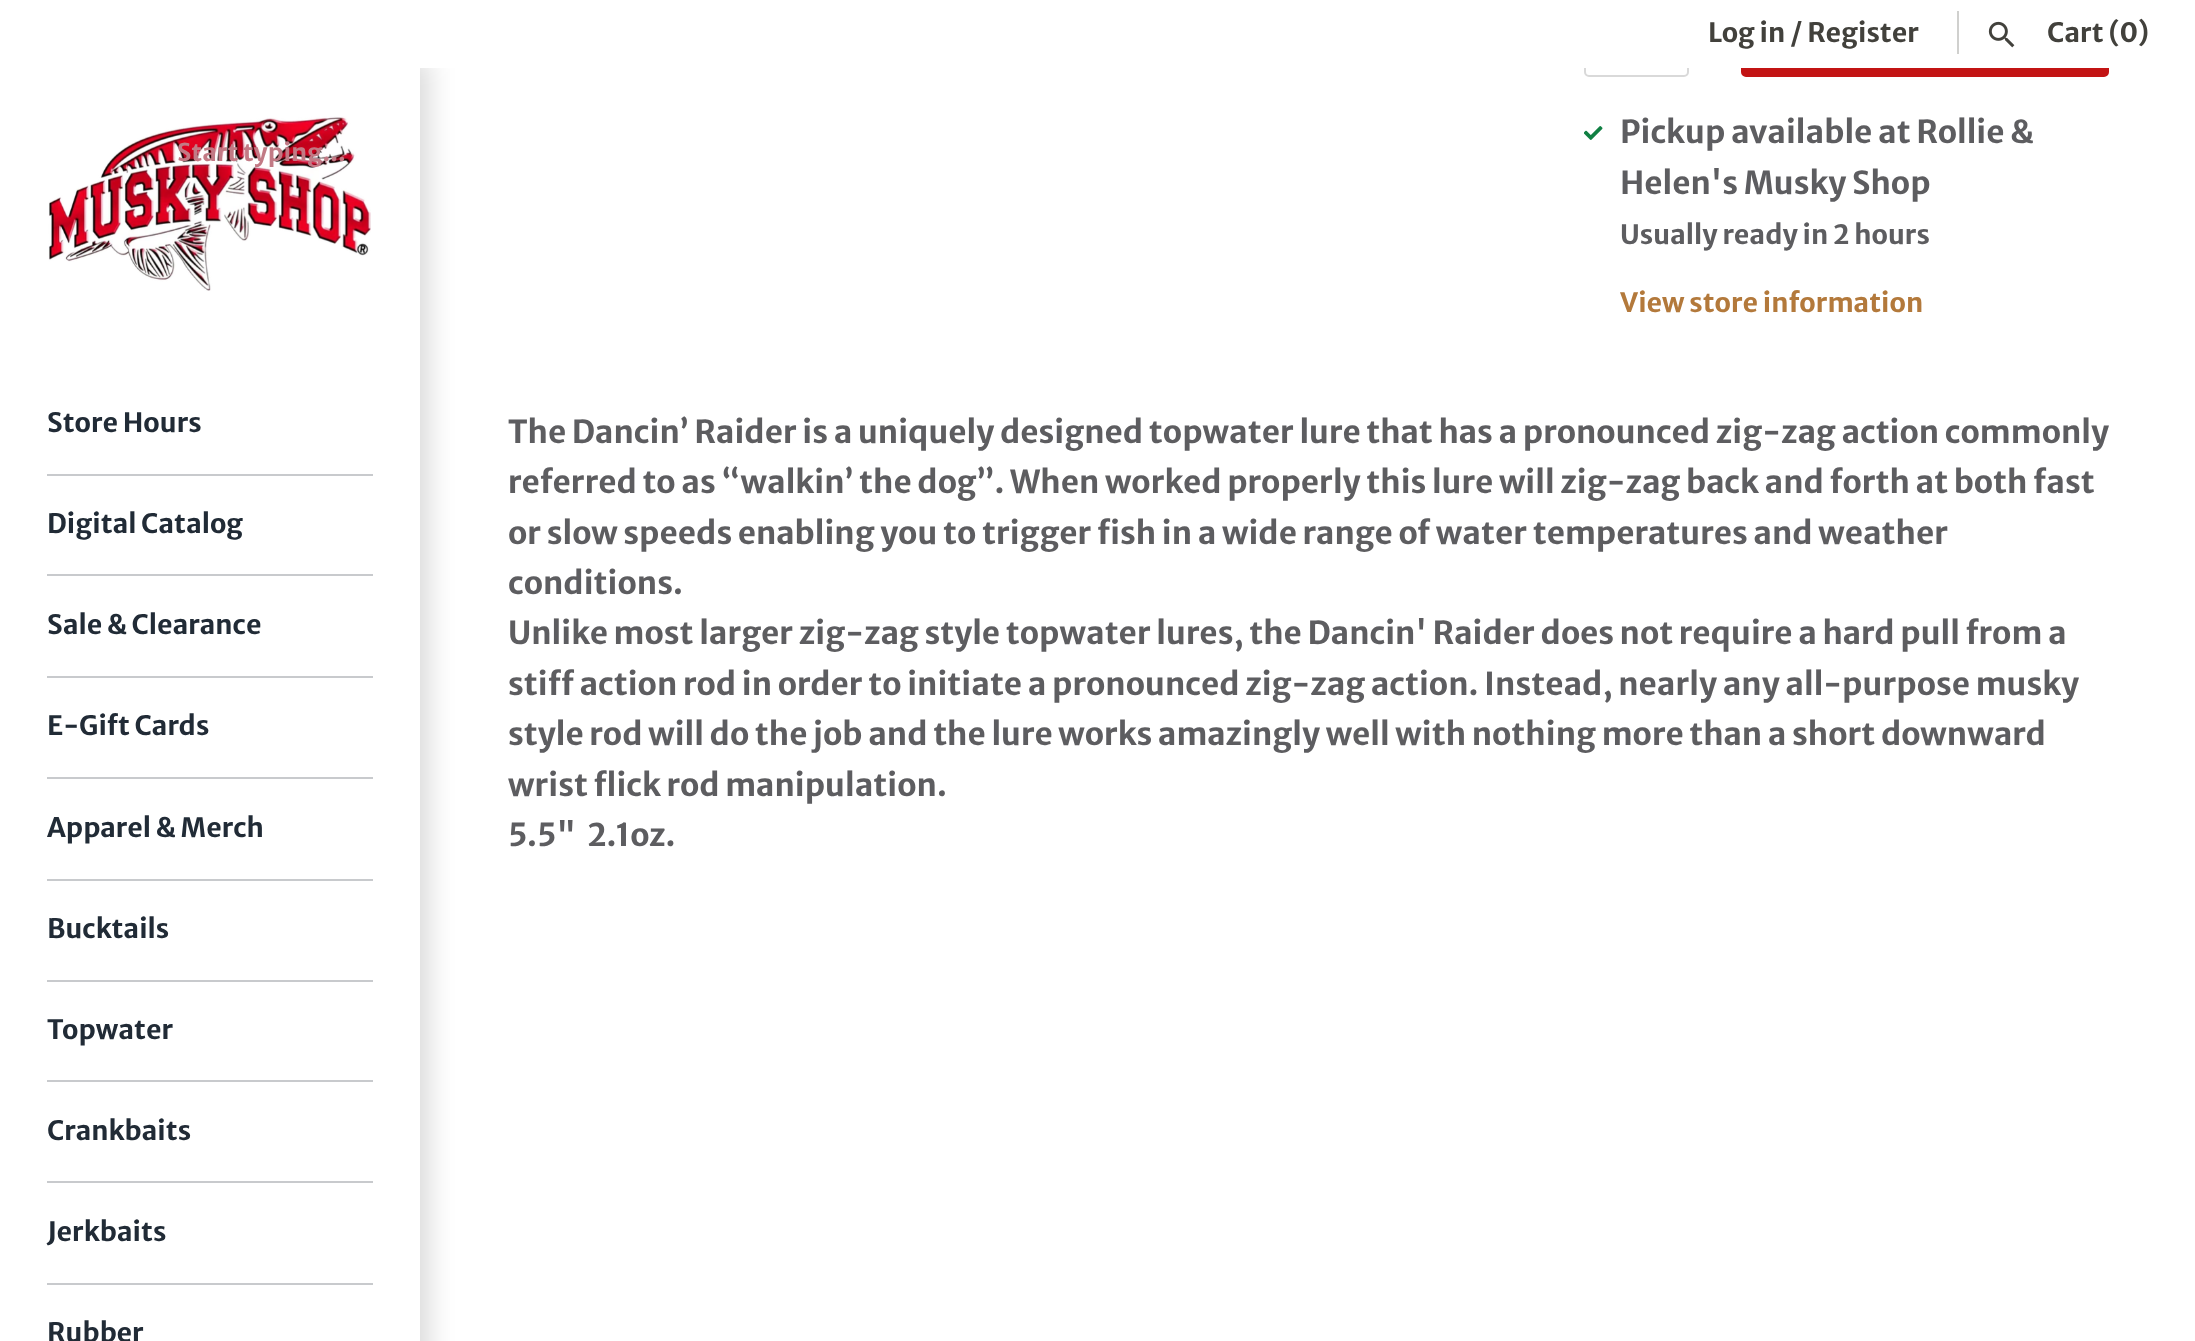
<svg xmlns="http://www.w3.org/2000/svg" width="2195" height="1341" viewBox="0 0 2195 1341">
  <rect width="100%" height="100%" fill="rgb(255,255,255)"/>
  <rect x="-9" y="60" width="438" height="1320" fill="rgba(0,0,0,0.15)" filter="blur(13px)"/>
  <rect x="1585" y="-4" width="103" height="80" rx="4" fill="none" stroke="rgb(217,217,217)" stroke-width="2"/>
  <rect x="1742" y="-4" width="366" height="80" rx="4" fill="rgb(195,20,20)" stroke="rgb(195,20,20)" stroke-width="2"/>
  <rect x="0" y="0" width="2109" height="68" fill="rgb(255,255,255)"/>
  <text x="1708" y="42" font-family="Merriweather Sans" font-size="26.75" font-weight="bold" fill="rgb(66,65,60)">Log in / Register</text>
  <rect x="1957" y="11" width="2" height="43" fill="rgb(208,208,206)"/>
  <image x="1988" y="21" width="27" height="27" href="pic1.png"/>
  <text x="2047" y="42" font-family="Merriweather Sans" font-size="26.75" font-weight="bold" fill="rgb(66,65,60)">Cart (0)</text>
  <rect x="0" y="68" width="420" height="1273" fill="rgb(255,255,255)"/>
  <image x="48" y="116" width="323" height="175" href="pic2.png"/>
  <text x="177" y="161" font-family="Merriweather Sans" font-size="24.5" font-weight="bold" fill="rgb(194,122,133)">Start typing...</text>
  <rect x="47" y="474" width="326" height="2" fill="rgb(200,202,205)"/>
  <text x="47" y="432" font-family="Merriweather Sans" font-size="26.75" font-weight="bold" fill="rgb(33,43,54)">Store Hours</text>
  <rect x="47" y="574" width="326" height="2" fill="rgb(200,202,205)"/>
  <text x="47" y="533" font-family="Merriweather Sans" font-size="26.75" font-weight="bold" fill="rgb(33,43,54)">Digital Catalog</text>
  <rect x="47" y="676" width="326" height="2" fill="rgb(200,202,205)"/>
  <text x="47" y="634" font-family="Merriweather Sans" font-size="26.75" font-weight="bold" fill="rgb(33,43,54)">Sale &amp; Clearance</text>
  <rect x="47" y="777" width="326" height="2" fill="rgb(200,202,205)"/>
  <text x="47" y="735" font-family="Merriweather Sans" font-size="26.75" font-weight="bold" fill="rgb(33,43,54)">E-Gift Cards</text>
  <rect x="47" y="879" width="326" height="2" fill="rgb(200,202,205)"/>
  <text x="47" y="837" font-family="Merriweather Sans" font-size="26.75" font-weight="bold" fill="rgb(33,43,54)">Apparel &amp; Merch</text>
  <rect x="47" y="980" width="326" height="2" fill="rgb(200,202,205)"/>
  <text x="47" y="938" font-family="Merriweather Sans" font-size="26.75" font-weight="bold" fill="rgb(33,43,54)">Bucktails</text>
  <rect x="47" y="1080" width="326" height="2" fill="rgb(200,202,205)"/>
  <text x="47" y="1039" font-family="Merriweather Sans" font-size="26.75" font-weight="bold" fill="rgb(33,43,54)">Topwater</text>
  <rect x="47" y="1181" width="326" height="2" fill="rgb(200,202,205)"/>
  <text x="47" y="1140" font-family="Merriweather Sans" font-size="26.75" font-weight="bold" fill="rgb(33,43,54)">Crankbaits</text>
  <rect x="47" y="1283" width="326" height="2" fill="rgb(200,202,205)"/>
  <g font-family="Merriweather Sans" font-size="26.75" font-weight="bold" fill="rgb(33,43,54)">
    <text x="47" y="1241">Jerkbaits</text>
    <text x="47" y="1342">Rubber</text>
  </g>
  <image x="1584" y="126" width="19" height="14" href="pic3.png"/>
  <g font-family="Merriweather Sans" font-size="31.5" font-weight="bold" fill="rgb(93,93,96)">
    <text>
      <tspan x="1620" y="143">Pickup available at Rollie &amp;</tspan>
      <tspan x="1620" y="194">Helen's Musky Shop</tspan>
    </text>
  </g>
  <text x="1620" y="244" font-family="Merriweather Sans" font-size="26.75" font-weight="bold" fill="rgb(93,93,96)">Usually ready in 2 hours</text>
  <text x="1620" y="312" font-family="Merriweather Sans" font-size="26.75" font-weight="bold" fill="rgb(179,121,59)">View store information</text>
  <g font-family="Merriweather Sans" font-size="31.5" font-weight="bold" fill="rgb(93,93,96)">
    <text xml:space="preserve"><tspan x="508" y="443">The Dancin’ Raider is a uniquely designed topwater lure that has a pronounced zig-zag action commonly</tspan><tspan x="508" y="493">referred to as “walkin’ the dog”. When worked properly this lure will zig-zag back and forth at both fast</tspan><tspan x="508" y="544">or slow speeds enabling you to trigger fish in a wide range of water temperatures and weather</tspan><tspan x="508" y="594">conditions.</tspan><tspan x="508" y="644">Unlike most larger zig-zag style topwater lures, the Dancin' Raider does not require a hard pull from a</tspan><tspan x="508" y="695">stiff action rod in order to initiate a pronounced zig-zag action. Instead, nearly any all-purpose musky</tspan><tspan x="508" y="745">style rod will do the job and the lure works amazingly well with nothing more than a short downward</tspan><tspan x="508" y="796">wrist flick rod manipulation.</tspan><tspan x="508" y="846">5.5"  2.1oz.</tspan></text>
  </g>
</svg>
